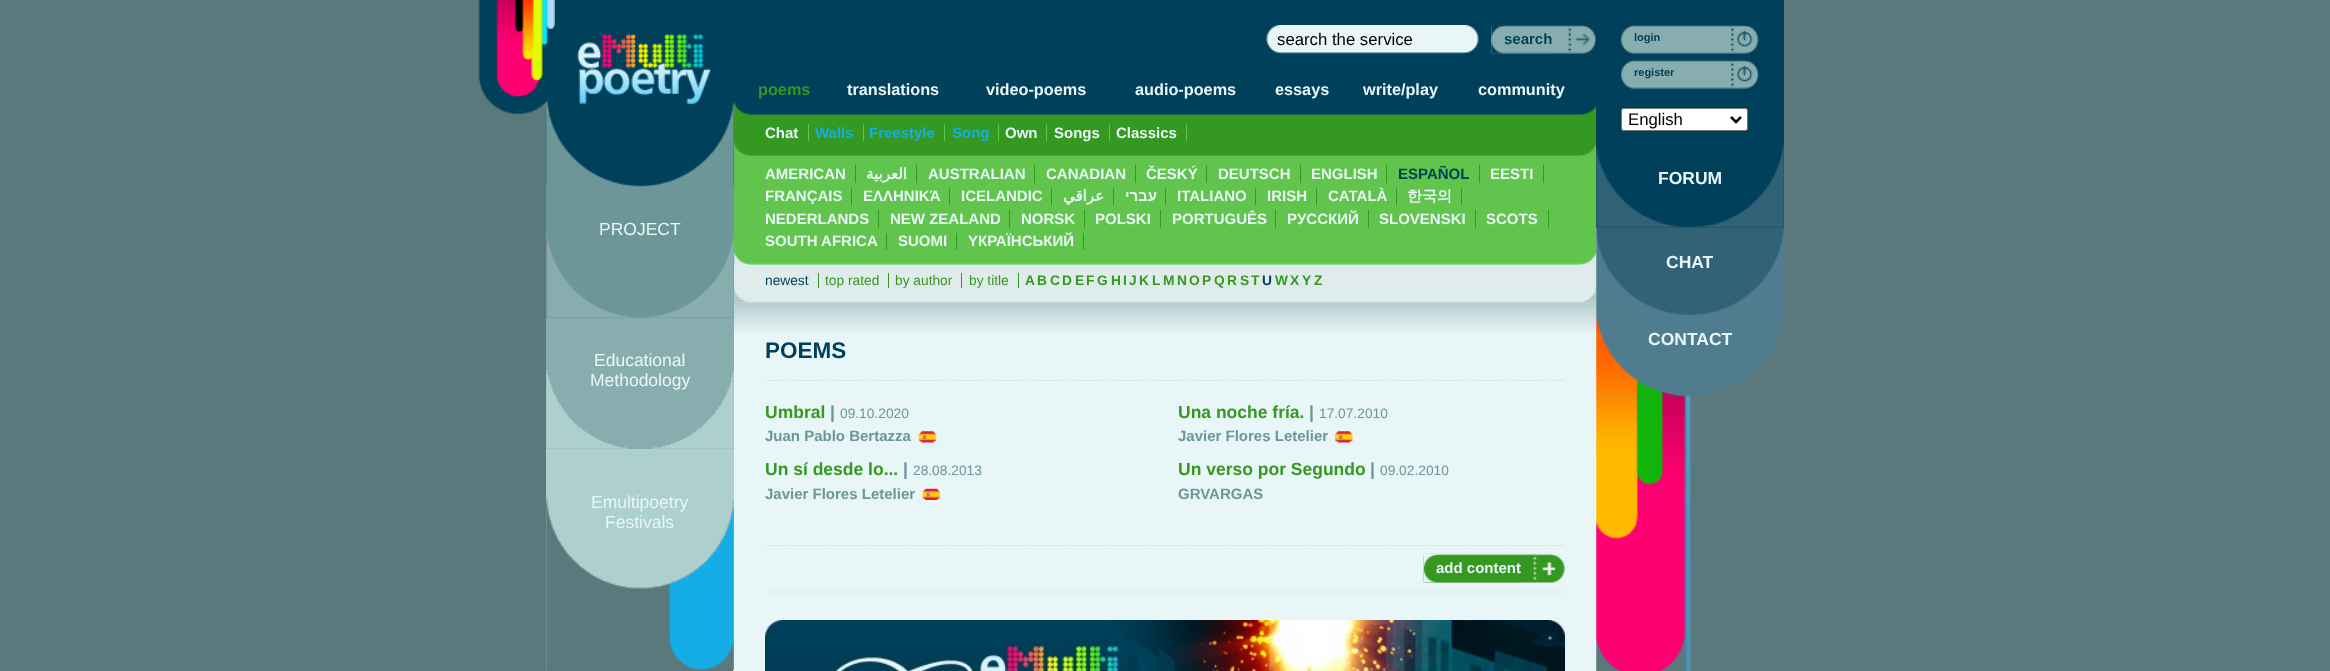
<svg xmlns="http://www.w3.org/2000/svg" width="2330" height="671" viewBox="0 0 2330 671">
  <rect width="100%" height="100%" fill="rgb(91,120,124)"/>
  <rect x="733" y="228" width="864" height="443" fill="rgb(232,246,247)"/>
  <rect x="546" y="0" width="188" height="186" fill="rgb(0,64,90)"/>
  <rect x="546" y="186" width="188" height="132" fill="rgb(108,150,151)"/>
  <image x="546" y="101" width="188" height="86" href="pic2.png"/>
  <image x="478" y="0" width="77" height="114" href="pic1.png"/>
  <image x="577" y="33" width="134" height="71" href="pic3.png"/>
  <image x="546" y="230" width="188" height="88" href="pic4.png"/>
  <text x="599" y="235" font-family="Liberation Sans" font-size="17.5" fill="rgb(232,246,247)">PROJECT</text>
  <rect x="546" y="318" width="188" height="131" fill="rgb(136,173,174)"/>
  <image x="546" y="369" width="188" height="80" href="pic5.png"/>
  <g font-family="Liberation Sans" font-size="17.5" fill="rgb(232,246,247)">
    <text x="594" y="366">Educational</text>
    <text x="590" y="386">Methodology</text>
  </g>
  <rect x="546" y="449" width="188" height="221" fill="rgb(173,207,206)"/>
  <image x="546" y="498" width="188" height="172" href="pic6.png"/>
  <g font-family="Liberation Sans" font-size="17.5" fill="rgb(232,246,247)">
    <text x="591" y="508">Emultipoetry</text>
    <text x="605" y="528">Festivals</text>
  </g>
  <rect x="734" y="0" width="862" height="100" fill="rgb(0,64,90)"/>
  <image x="1266" y="25" width="213" height="29" href="pic7.png"/>
  <text x="1277" y="45" font-family="Liberation Sans" font-size="16.75" fill="rgb(0,0,0)">search the service</text>
  <image x="1491" y="25" width="105" height="29" href="pic8.png"/>
  <image x="1491" y="25" width="62" height="29" href="pic9.png"/>
  <text x="1504" y="44" font-family="Liberation Sans" font-size="15" font-weight="bold" fill="rgb(0,64,90)">search</text>
  <image x="734" y="100" width="862" height="15" href="pic10.png"/>
  <text x="758" y="95" font-family="Liberation Sans" font-size="16.25" font-weight="bold" fill="rgb(53,152,33)">poems</text>
  <g font-family="Liberation Sans" font-size="16.25" font-weight="bold" fill="rgb(232,246,247)">
    <text x="847" y="95">translations</text>
    <text x="986" y="95">video-poems</text>
    <text x="1135" y="95">audio-poems</text>
    <text x="1275" y="95">essays</text>
    <text x="1363" y="95">write/play</text>
    <text x="1478" y="95">community</text>
  </g>
  <rect x="734" y="115" width="862" height="27" fill="rgb(53,152,33)"/>
  <image x="734" y="141" width="862" height="15" href="pic11.png"/>
  <text x="765" y="138" font-family="Liberation Sans" font-size="15" font-weight="bold" fill="rgb(232,246,247)">Chat</text>
  <rect x="808" y="124" width="1" height="17" fill="rgb(97,197,77)"/>
  <text x="815" y="138" font-family="Liberation Sans" font-size="15" font-weight="bold" fill="rgb(21,173,229)">Walls</text>
  <rect x="863" y="124" width="1" height="17" fill="rgb(97,197,77)"/>
  <text x="869" y="138" font-family="Liberation Sans" font-size="15" font-weight="bold" fill="rgb(21,173,229)">Freestyle</text>
  <rect x="944" y="124" width="1" height="17" fill="rgb(97,197,77)"/>
  <text x="952" y="138" font-family="Liberation Sans" font-size="15" font-weight="bold" fill="rgb(21,173,229)">Song</text>
  <rect x="998" y="124" width="1" height="17" fill="rgb(97,197,77)"/>
  <text x="1005" y="138" font-family="Liberation Sans" font-size="15" font-weight="bold" fill="rgb(232,246,247)">Own</text>
  <rect x="1046" y="124" width="1" height="17" fill="rgb(97,197,77)"/>
  <text x="1054" y="138" font-family="Liberation Sans" font-size="15" font-weight="bold" fill="rgb(232,246,247)">Songs</text>
  <rect x="1109" y="124" width="1" height="17" fill="rgb(97,197,77)"/>
  <text x="1116" y="138" font-family="Liberation Sans" font-size="15" font-weight="bold" fill="rgb(232,246,247)">Classics</text>
  <rect x="1186" y="124" width="1" height="17" fill="rgb(97,197,77)"/>
  <rect x="734" y="156" width="862" height="94" fill="rgb(97,197,77)"/>
  <image x="734" y="250" width="863" height="15" href="pic12.png"/>
  <text x="765" y="179" font-family="Liberation Sans" font-size="15" font-weight="bold" fill="rgb(232,246,247)">AMERICAN</text>
  <rect x="855" y="165" width="1" height="18" fill="rgb(53,152,33)"/>
  <text x="907" y="179" font-family="DejaVu Sans" font-size="15" font-weight="bold" direction="rtl" fill="rgb(232,246,247)">العربية</text>
  <rect x="916" y="165" width="1" height="18" fill="rgb(53,152,33)"/>
  <text x="928" y="179" font-family="Liberation Sans" font-size="15" font-weight="bold" fill="rgb(232,246,247)">AUSTRALIAN</text>
  <rect x="1034" y="165" width="1" height="18" fill="rgb(53,152,33)"/>
  <text x="1046" y="179" font-family="Liberation Sans" font-size="15" font-weight="bold" fill="rgb(232,246,247)">CANADIAN</text>
  <rect x="1135" y="165" width="1" height="18" fill="rgb(53,152,33)"/>
  <text x="1146" y="179" font-family="Liberation Sans" font-size="15" font-weight="bold" fill="rgb(232,246,247)">ČESKÝ</text>
  <rect x="1206" y="165" width="1" height="18" fill="rgb(53,152,33)"/>
  <text x="1218" y="179" font-family="Liberation Sans" font-size="15" font-weight="bold" fill="rgb(232,246,247)">DEUTSCH</text>
  <rect x="1300" y="165" width="1" height="18" fill="rgb(53,152,33)"/>
  <text x="1311" y="179" font-family="Liberation Sans" font-size="15" font-weight="bold" fill="rgb(232,246,247)">ENGLISH</text>
  <rect x="1386" y="165" width="1" height="18" fill="rgb(53,152,33)"/>
  <text x="1398" y="179" font-family="Liberation Sans" font-size="15" font-weight="bold" fill="rgb(0,64,90)">ESPAÑOL</text>
  <rect x="1479" y="165" width="1" height="18" fill="rgb(53,152,33)"/>
  <text x="1490" y="179" font-family="Liberation Sans" font-size="15" font-weight="bold" fill="rgb(232,246,247)">EESTI</text>
  <rect x="1543" y="165" width="1" height="18" fill="rgb(53,152,33)"/>
  <text x="765" y="201" font-family="Liberation Sans" font-size="15" font-weight="bold" fill="rgb(232,246,247)">FRANÇAIS</text>
  <rect x="851" y="188" width="1" height="17" fill="rgb(53,152,33)"/>
  <text x="863" y="201" font-family="Liberation Sans" font-size="15" font-weight="bold" fill="rgb(232,246,247)">ΕΛΛΗΝΙΚΆ</text>
  <rect x="949" y="188" width="1" height="17" fill="rgb(53,152,33)"/>
  <text x="961" y="201" font-family="Liberation Sans" font-size="15" font-weight="bold" fill="rgb(232,246,247)">ICELANDIC</text>
  <rect x="1051" y="188" width="1" height="17" fill="rgb(53,152,33)"/>
  <text x="1104" y="201" font-family="DejaVu Sans" font-size="15" font-weight="bold" direction="rtl" fill="rgb(232,246,247)">عراقي</text>
  <rect x="1113" y="188" width="1" height="17" fill="rgb(53,152,33)"/>
  <text x="1157" y="201" font-family="Liberation Sans" font-size="15" font-weight="bold" direction="rtl" fill="rgb(232,246,247)">עברי</text>
  <rect x="1165" y="188" width="1" height="17" fill="rgb(53,152,33)"/>
  <text x="1177" y="201" font-family="Liberation Sans" font-size="15" font-weight="bold" fill="rgb(232,246,247)">ITALIANO</text>
  <rect x="1255" y="188" width="1" height="17" fill="rgb(53,152,33)"/>
  <text x="1267" y="201" font-family="Liberation Sans" font-size="15" font-weight="bold" fill="rgb(232,246,247)">IRISH</text>
  <rect x="1316" y="188" width="1" height="17" fill="rgb(53,152,33)"/>
  <text x="1328" y="201" font-family="Liberation Sans" font-size="15" font-weight="bold" fill="rgb(232,246,247)">CATALÀ</text>
  <rect x="1396" y="188" width="1" height="17" fill="rgb(53,152,33)"/>
  <text x="1407" y="201" font-family="WenQuanYi Zen Hei" font-size="15" font-weight="bold" fill="rgb(232,246,247)">한국의</text>
  <rect x="1461" y="188" width="1" height="17" fill="rgb(53,152,33)"/>
  <text x="765" y="224" font-family="Liberation Sans" font-size="15" font-weight="bold" fill="rgb(232,246,247)">NEDERLANDS</text>
  <rect x="878" y="210" width="1" height="18" fill="rgb(53,152,33)"/>
  <text x="890" y="224" font-family="Liberation Sans" font-size="15" font-weight="bold" fill="rgb(232,246,247)">NEW ZEALAND</text>
  <rect x="1009" y="210" width="1" height="18" fill="rgb(53,152,33)"/>
  <text x="1021" y="224" font-family="Liberation Sans" font-size="15" font-weight="bold" fill="rgb(232,246,247)">NORSK</text>
  <rect x="1084" y="210" width="1" height="18" fill="rgb(53,152,33)"/>
  <text x="1095" y="224" font-family="Liberation Sans" font-size="15" font-weight="bold" fill="rgb(232,246,247)">POLSKI</text>
  <rect x="1160" y="210" width="1" height="18" fill="rgb(53,152,33)"/>
  <text x="1172" y="224" font-family="Liberation Sans" font-size="15" font-weight="bold" fill="rgb(232,246,247)">PORTUGUÊS</text>
  <rect x="1275" y="210" width="1" height="18" fill="rgb(53,152,33)"/>
  <text x="1287" y="224" font-family="Liberation Sans" font-size="15" font-weight="bold" fill="rgb(232,246,247)">PУССКИЙ</text>
  <rect x="1368" y="210" width="1" height="18" fill="rgb(53,152,33)"/>
  <text x="1379" y="224" font-family="Liberation Sans" font-size="15" font-weight="bold" fill="rgb(232,246,247)">SLOVENSKI</text>
  <rect x="1475" y="210" width="1" height="18" fill="rgb(53,152,33)"/>
  <text x="1486" y="224" font-family="Liberation Sans" font-size="15" font-weight="bold" fill="rgb(232,246,247)">SCOTS</text>
  <rect x="1548" y="210" width="1" height="18" fill="rgb(53,152,33)"/>
  <text x="765" y="246" font-family="Liberation Sans" font-size="15" font-weight="bold" fill="rgb(232,246,247)">SOUTH AFRICA</text>
  <rect x="886" y="233" width="1" height="17" fill="rgb(53,152,33)"/>
  <text x="898" y="246" font-family="Liberation Sans" font-size="15" font-weight="bold" fill="rgb(232,246,247)">SUOMI</text>
  <rect x="956" y="233" width="1" height="17" fill="rgb(53,152,33)"/>
  <text x="968" y="246" font-family="Liberation Sans" font-size="15" font-weight="bold" fill="rgb(232,246,247)">YКРАЇНСЬКИЙ</text>
  <rect x="1083" y="233" width="1" height="17" fill="rgb(53,152,33)"/>
  <rect x="734" y="265" width="862" height="38" fill="rgb(224,235,235)"/>
  <image x="734" y="287" width="863" height="16" href="pic13.png"/>
  <text x="765" y="285" font-family="Liberation Sans" font-size="13.75" fill="rgb(0,64,90)">newest</text>
  <rect x="818" y="273" width="1" height="15" fill="rgb(53,152,33)"/>
  <text x="825" y="285" font-family="Liberation Sans" font-size="13.75" fill="rgb(53,152,33)">top rated</text>
  <rect x="888" y="273" width="1" height="15" fill="rgb(53,152,33)"/>
  <text x="895" y="285" font-family="Liberation Sans" font-size="13.75" fill="rgb(53,152,33)">by author</text>
  <rect x="961" y="273" width="1" height="15" fill="rgb(53,152,33)"/>
  <text x="969" y="285" font-family="Liberation Sans" font-size="13.75" fill="rgb(53,152,33)">by title</text>
  <rect x="1018" y="273" width="1" height="15" fill="rgb(53,152,33)"/>
  <g font-family="Liberation Sans" font-size="13.75" font-weight="bold" fill="rgb(53,152,33)">
    <text x="1025" y="285">A</text>
    <text x="1037" y="285">B</text>
    <text x="1050" y="285">C</text>
    <text x="1062" y="285">D</text>
    <text x="1075" y="285">E</text>
    <text x="1086" y="285">F</text>
    <text x="1097" y="285">G</text>
    <text x="1111" y="285">H</text>
    <text x="1123" y="285">I</text>
    <text x="1129" y="285">J</text>
    <text x="1139" y="285">K</text>
    <text x="1152" y="285">L</text>
    <text x="1163" y="285">M</text>
    <text x="1177" y="285">N</text>
    <text x="1189" y="285">O</text>
    <text x="1202" y="285">P</text>
    <text x="1214" y="285">Q</text>
    <text x="1227" y="285">R</text>
    <text x="1240" y="285">S</text>
    <text x="1251" y="285">T</text>
  </g>
  <text x="1262" y="285" font-family="Liberation Sans" font-size="13.75" font-weight="bold" fill="rgb(0,64,90)">U</text>
  <g font-family="Liberation Sans" font-size="13.75" font-weight="bold" fill="rgb(53,152,33)">
    <text x="1275" y="285">W</text>
    <text x="1290" y="285">X</text>
    <text x="1302" y="285">Y</text>
    <text x="1314" y="285">Z</text>
  </g>
  <image x="734" y="302" width="863" height="30" href="pic14.png"/>
  <text x="765" y="358" font-family="Liberation Sans" font-size="22.5" font-weight="bold" fill="rgb(0,64,90)">POEMS</text>
  <path d="M765 380.5H1565" fill="none" stroke="rgb(202,224,225)" stroke-width="1.2" stroke-dasharray="1.25 1.25"/>
  <text x="765" y="418" font-family="Liberation Sans" font-size="17.5" font-weight="bold" fill="rgb(53,152,33)">Umbral</text>
  <text x="830" y="418" font-family="Liberation Sans" font-size="17.5" font-weight="bold" fill="rgb(108,150,151)">|</text>
  <text x="840" y="418" font-family="Liberation Sans" font-size="13.75" fill="rgb(108,150,151)">09.10.2020</text>
  <text x="765" y="441" font-family="Liberation Sans" font-size="15" font-weight="bold" fill="rgb(108,150,151)">Juan Pablo Bertazza</text>
  <image x="918" y="431" width="19" height="12" href="pic15.png"/>
  <text x="765" y="475" font-family="Liberation Sans" font-size="17.5" font-weight="bold" fill="rgb(53,152,33)">Un sí desde lo...</text>
  <text x="903" y="475" font-family="Liberation Sans" font-size="17.5" font-weight="bold" fill="rgb(108,150,151)">|</text>
  <text x="913" y="475" font-family="Liberation Sans" font-size="13.75" fill="rgb(108,150,151)">28.08.2013</text>
  <text x="765" y="499" font-family="Liberation Sans" font-size="15" font-weight="bold" fill="rgb(108,150,151)">Javier Flores Letelier</text>
  <image x="922" y="488" width="18" height="12" href="pic16.png"/>
  <text x="1178" y="418" font-family="Liberation Sans" font-size="17.5" font-weight="bold" fill="rgb(53,152,33)">Una noche fría.</text>
  <text x="1309" y="418" font-family="Liberation Sans" font-size="17.5" font-weight="bold" fill="rgb(108,150,151)">|</text>
  <text x="1319" y="418" font-family="Liberation Sans" font-size="13.75" fill="rgb(108,150,151)">17.07.2010</text>
  <text x="1178" y="441" font-family="Liberation Sans" font-size="15" font-weight="bold" fill="rgb(108,150,151)">Javier Flores Letelier</text>
  <image x="1335" y="431" width="18" height="12" href="pic17.png"/>
  <text x="1178" y="475" font-family="Liberation Sans" font-size="17.5" font-weight="bold" fill="rgb(53,152,33)">Un verso por Segundo</text>
  <text x="1370" y="475" font-family="Liberation Sans" font-size="17.5" font-weight="bold" fill="rgb(108,150,151)">|</text>
  <text x="1380" y="475" font-family="Liberation Sans" font-size="13.75" fill="rgb(108,150,151)">09.02.2010</text>
  <text x="1178" y="499" font-family="Liberation Sans" font-size="15" font-weight="bold" fill="rgb(108,150,151)">GRVARGAS</text>
  <path d="M765 545.5H1565" fill="none" stroke="rgb(202,224,225)" stroke-width="1.2" stroke-dasharray="1.25 1.25"/>
  <image x="1423" y="553" width="142" height="30" href="pic18.png"/>
  <image x="1423" y="554" width="99" height="29" href="pic19.png"/>
  <text x="1436" y="573" font-family="Liberation Sans" font-size="15" font-weight="bold" fill="rgb(232,246,247)">add content</text>
  <path d="M765 592H1565" fill="none" stroke="rgb(202,224,225)" stroke-width="1.2" stroke-dasharray="1.25 1.25"/>
  <image x="765" y="620" width="800" height="51" href="pic20.png"/>
  <rect x="1596" y="0" width="188" height="228" fill="rgb(0,64,90)"/>
  <image x="1621" y="25" width="138" height="29" href="pic21.png"/>
  <text x="1634" y="41" font-family="Liberation Sans" font-size="11" font-weight="bold" fill="rgb(0,64,90)">login</text>
  <image x="1621" y="60" width="138" height="29" href="pic21.png"/>
  <text x="1634" y="76" font-family="Liberation Sans" font-size="11" font-weight="bold" fill="rgb(0,64,90)">register</text>
  <rect x="1621.5" y="108.5" width="126" height="22" rx="2" fill="rgb(255,255,255)" stroke="rgb(118,118,118)"/>
  <path d="M1731 117L1736 122L1741 117" fill="none" stroke="rgb(0,0,0)" stroke-width="2.5"/>
  <text x="1628" y="125" font-family="Liberation Sans" font-size="16.75" fill="rgb(0,0,0)">English</text>
  <image x="1596" y="142" width="188" height="86" href="pic22.png"/>
  <text x="1658" y="184" font-family="Liberation Sans" font-size="17.5" font-weight="bold" fill="rgb(232,246,247)">FORUM</text>
  <image x="1596" y="227" width="188" height="88" href="pic23.png"/>
  <text x="1666" y="268" font-family="Liberation Sans" font-size="17.5" font-weight="bold" fill="rgb(232,246,247)">CHAT</text>
  <image x="1596" y="315" width="188" height="82" href="pic24.png"/>
  <text x="1648" y="345" font-family="Liberation Sans" font-size="17.5" font-weight="bold" fill="rgb(232,246,247)">CONTACT</text>
  <image x="1596" y="396" width="96" height="275" href="pic25.png"/>
</svg>
